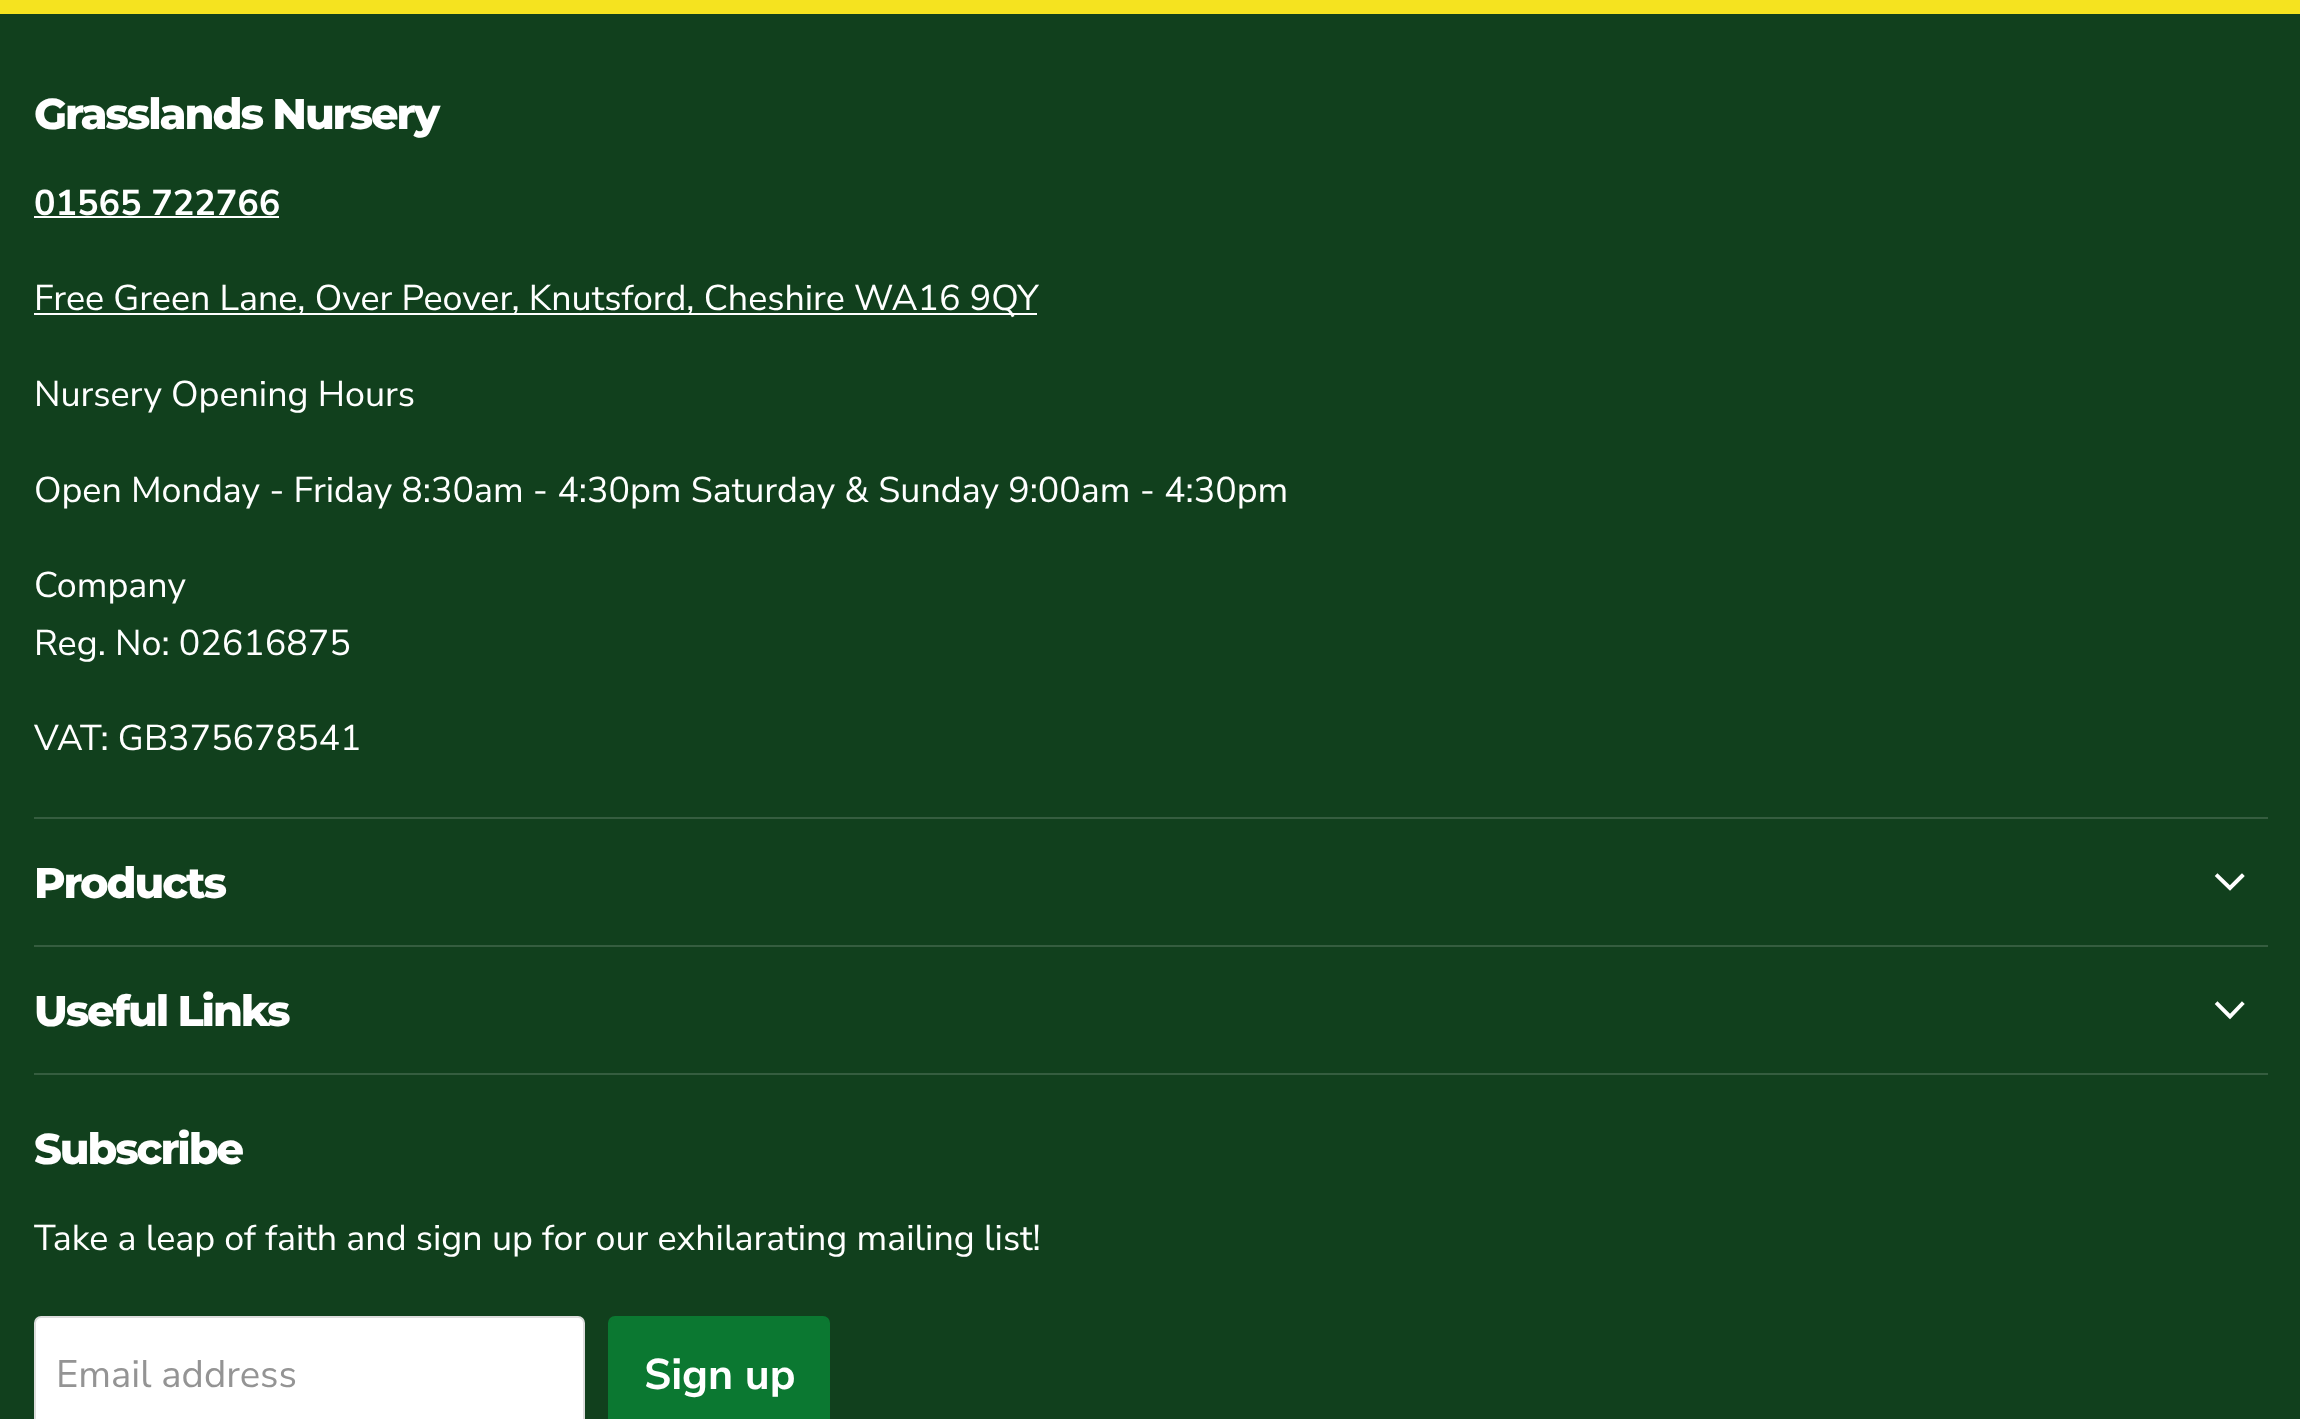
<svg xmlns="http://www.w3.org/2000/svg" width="2300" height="1419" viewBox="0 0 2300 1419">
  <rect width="100%" height="100%" fill="rgb(17,64,29)"/>
  <rect x="0" y="0" width="2300" height="14" fill="rgb(245,227,31)"/>
  <rect x="34" y="817" width="2234" height="2" fill="rgb(53,93,63)"/>
  <text x="34" y="129" font-family="Montserrat" font-size="43" font-weight="800" letter-spacing="-2.1" fill="rgb(255,255,255)">Grasslands Nursery</text>
  <text x="34" y="215" font-family="Nunito Sans" font-size="35.85" font-weight="bold" fill="rgb(255,255,255)">01565 722766</text>
  <rect x="34" y="216" width="245" height="2" fill="rgb(255,255,255)"/>
  <rect x="34" y="313" width="1003" height="2" fill="rgb(255,255,255)"/>
  <g font-family="Nunito Sans" font-size="35.85" fill="rgb(255,255,255)">
    <text x="34" y="310">Free Green Lane, Over Peover, Knutsford, Cheshire WA16 9QY</text>
    <text x="34" y="406">Nursery Opening Hours</text>
    <text x="34" y="502">Open Monday - Friday 8:30am - 4:30pm Saturday &amp; Sunday 9:00am - 4:30pm</text>
    <text>
      <tspan x="34" y="597">Company</tspan>
      <tspan x="34" y="655">Reg. No: 02616875</tspan>
    </text>
    <text x="34" y="750">VAT: GB375678541</text>
  </g>
  <rect x="34" y="945" width="2234" height="2" fill="rgb(53,93,63)"/>
  <text x="34" y="898" font-family="Montserrat" font-size="43" font-weight="800" letter-spacing="-2.1" fill="rgb(255,255,255)">Products</text>
  <path d="M2230 888L2242 876M2230 888L2217.5 876" fill="none" stroke="rgb(255,255,255)" stroke-width="3.9" stroke-linecap="square"/>
  <rect x="34" y="1073" width="2234" height="2" fill="rgb(53,93,63)"/>
  <text x="34" y="1026" font-family="Montserrat" font-size="43" font-weight="800" letter-spacing="-2.1" fill="rgb(255,255,255)">Useful Links</text>
  <path d="M2230 1016.5L2242 1004M2230 1016.5L2217.5 1004" fill="none" stroke="rgb(255,255,255)" stroke-width="3.9" stroke-linecap="square"/>
  <text x="34" y="1164" font-family="Montserrat" font-size="43" font-weight="800" letter-spacing="-2.1" fill="rgb(255,255,255)">Subscribe</text>
  <text x="34" y="1250" font-family="Nunito Sans" font-size="35.85" fill="rgb(255,255,255)">Take a leap of faith and sign up for our exhilarating mailing list!</text>
  <rect x="35" y="1317" width="549" height="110" rx="6" fill="rgb(255,255,255)" stroke="rgb(221,221,221)" stroke-width="2"/>
  <text x="56" y="1387" font-family="Nunito Sans" font-size="38.25" fill="rgb(148,148,148)">Email address</text>
  <rect x="609" y="1317" width="220" height="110" rx="6" fill="rgb(11,120,49)" stroke="rgb(11,120,49)" stroke-width="2"/>
  <text x="644" y="1389" font-family="Nunito Sans" font-size="43" font-weight="bold" fill="rgb(255,255,255)">Sign up</text>
</svg>
